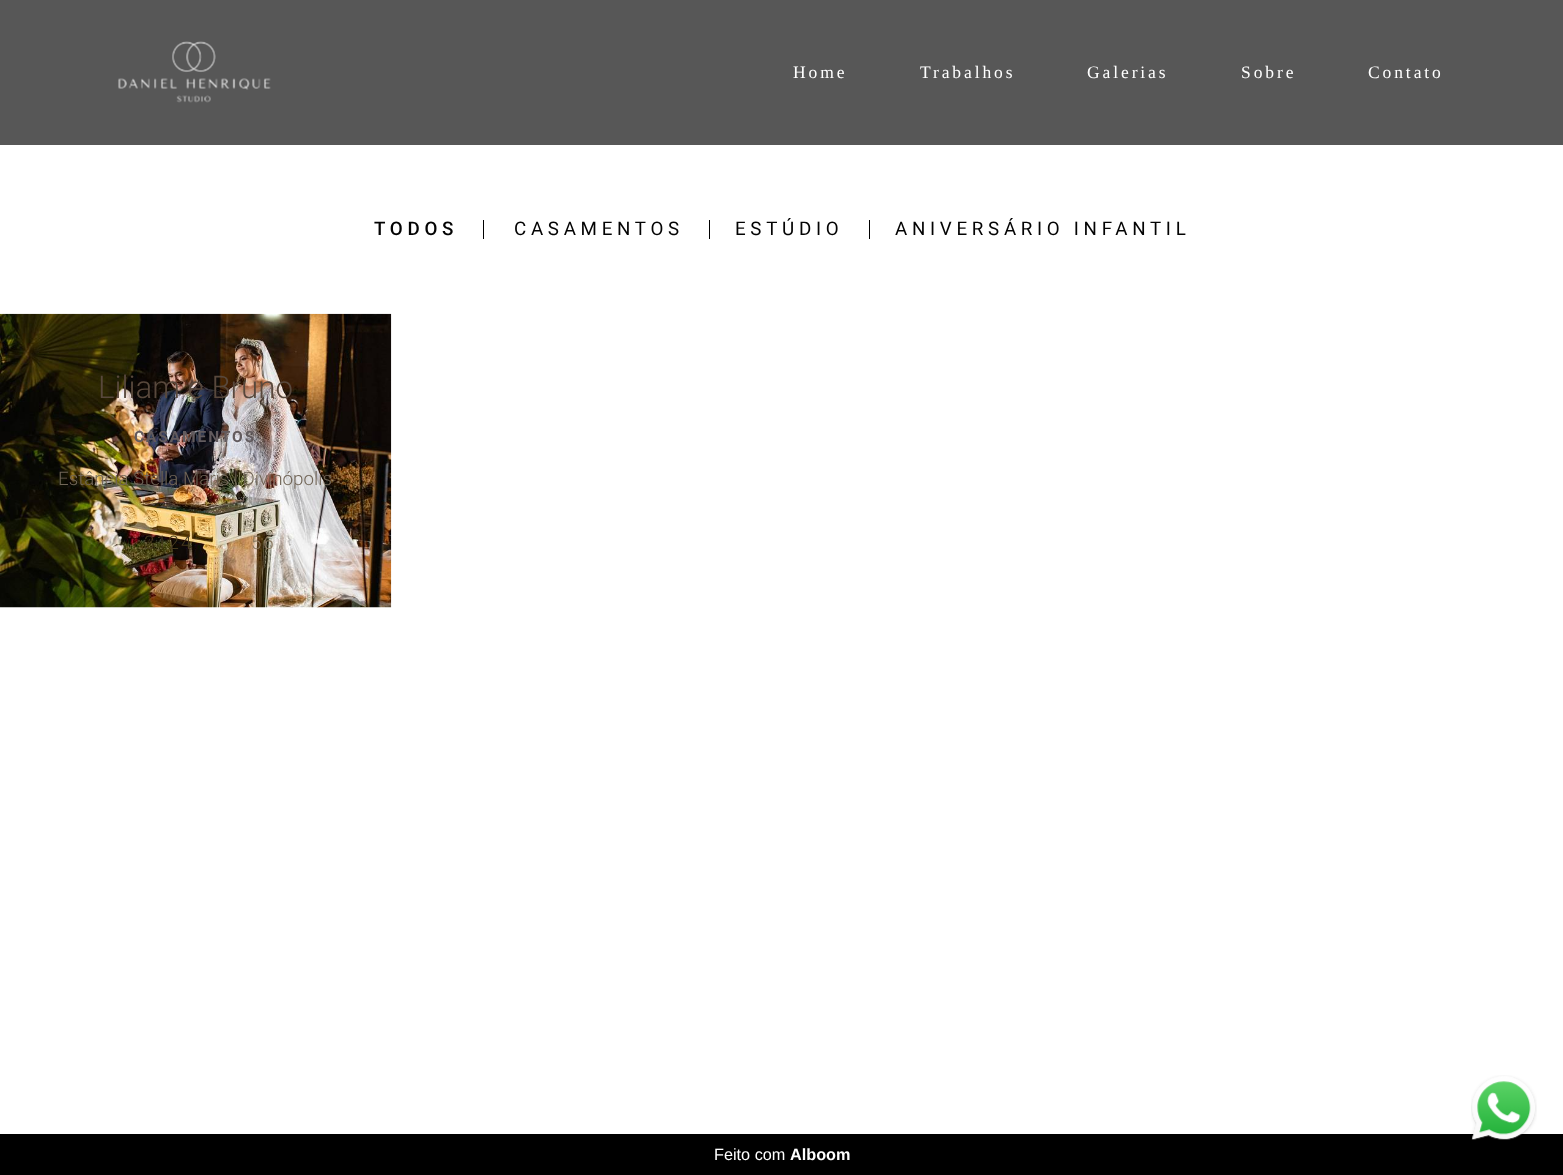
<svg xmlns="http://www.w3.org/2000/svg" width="1563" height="1175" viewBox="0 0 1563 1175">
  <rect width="100%" height="100%" fill="rgb(255,255,255)"/>
  <rect x="0" y="0" width="1563" height="145" fill="rgb(87,87,87)"/>
  <image x="118" y="41" width="153" height="62" href="pic1.png"/>
  <g font-family="Liberation Serif" font-size="17.5" letter-spacing="2.9" fill="rgb(255,255,255)">
    <text x="793" y="78">Home</text>
    <text x="920" y="78">Trabalhos</text>
    <text x="1087" y="78">Galerias</text>
    <text x="1241" y="78">Sobre</text>
    <text x="1368" y="78">Contato</text>
  </g>
  <rect x="483" y="220" width="1" height="19" fill="rgb(0,0,0)"/>
  <text x="374" y="235" font-family="Roboto" font-size="18.75" font-weight="500" letter-spacing="4.7" fill="rgb(3,3,3)">TODOS</text>
  <rect x="709" y="220" width="1" height="19" fill="rgb(0,0,0)"/>
  <text x="514" y="235" font-family="Roboto" font-size="18.75" letter-spacing="4.7" fill="rgb(3,3,3)">CASAMENTOS</text>
  <rect x="869" y="220" width="1" height="19" fill="rgb(0,0,0)"/>
  <g font-family="Roboto" font-size="18.75" letter-spacing="4.7" fill="rgb(3,3,3)">
    <text x="735" y="235">ESTÚDIO</text>
    <text x="895" y="235">ANIVERSÁRIO INFANTIL</text>
  </g>
  <image x="0" y="313" width="392" height="295" href="pic2.png"/>
  <text x="98" y="398" font-family="Roboto" font-size="31.25" font-weight="300" fill="rgb(88,72,60)">Liliam e Bruno</text>
  <text x="134" y="442" font-family="Roboto" font-size="15.5" font-weight="bold" letter-spacing="1.9" fill="rgb(98,91,94)">CASAMENTOS</text>
  <text x="58" y="485" font-family="Roboto" font-size="18.75" font-weight="300" fill="rgb(113,101,87)">Estância Stella Maris | Divinópolis</text>
  <text x="210" y="504" font-family="Roboto" font-size="18.75" font-weight="300" fill="rgb(186,131,76)">.</text>
  <text x="144" y="549" font-family="Roboto" font-size="18.75" font-weight="300" letter-spacing="1.9" fill="rgb(71,58,31)">3124</text>
  <text x="251" y="549" font-family="Roboto" font-size="18.75" font-weight="300" letter-spacing="1.9" fill="rgb(136,119,94)">56</text>
  <rect x="0" y="1134" width="1563" height="41" fill="rgb(0,0,0)"/>
  <image x="1471" y="1075" width="66" height="65" href="pic3.png"/>
  <text x="714" y="1160" font-family="Liberation Sans" font-size="16.25" fill="rgb(255,255,255)">Feito com</text>
  <text x="790" y="1160" font-family="Liberation Sans" font-size="16.25" font-weight="bold" fill="rgb(255,255,255)">Alboom</text>
</svg>
